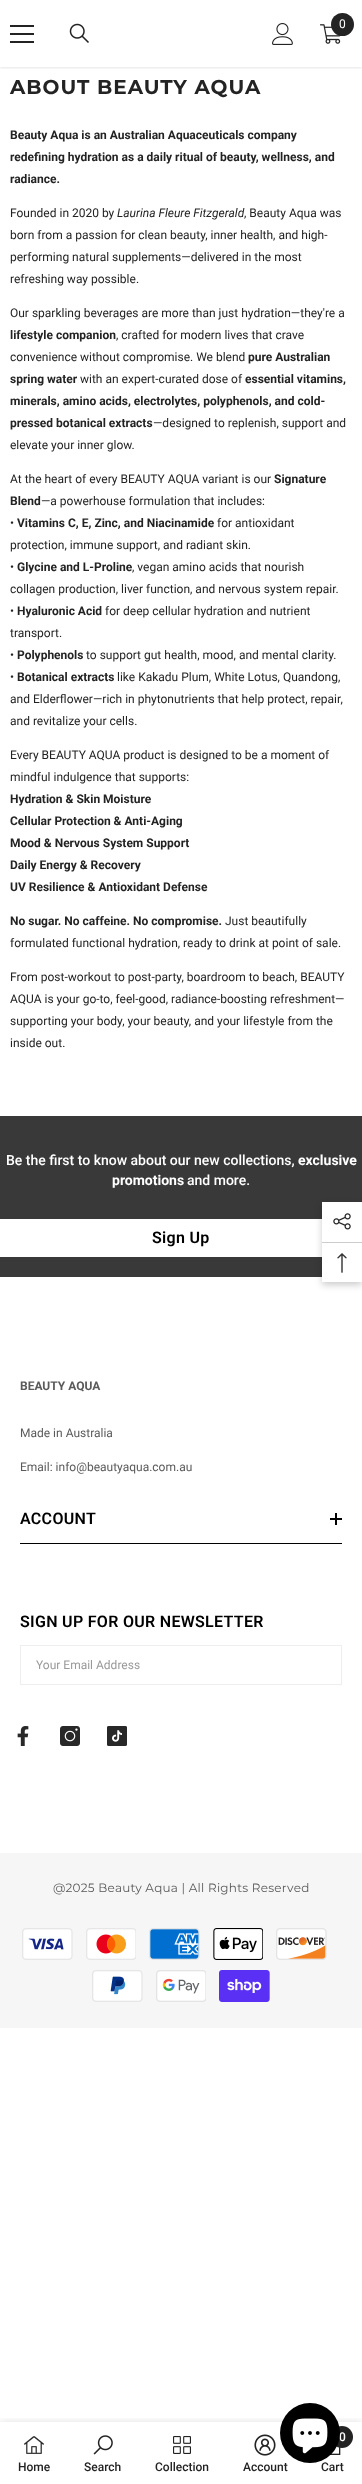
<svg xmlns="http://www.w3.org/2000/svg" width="362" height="2484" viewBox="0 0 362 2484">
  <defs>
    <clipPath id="clip1"><rect x="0" y="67" width="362" height="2"/></clipPath>
    <clipPath id="clip2"><rect x="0" y="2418" width="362" height="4"/></clipPath>
  </defs>
  <rect width="100%" height="100%" fill="rgb(255,255,255)"/>
  <g clip-path="url(#clip1)">
    <rect x="0" y="1" width="362" height="67" fill="rgba(0,0,0,0.1)" filter="blur(1.5px)"/>
  </g>
  <rect x="10" y="33" width="24" height="2" fill="rgb(35,35,35)"/>
  <rect x="10" y="25" width="24" height="2" fill="rgb(35,35,35)"/>
  <rect x="10" y="41" width="24" height="2" fill="rgb(35,35,35)"/>
  <image x="69" y="23" width="20" height="20" href="pic1.png"/>
  <image x="272" y="23" width="21" height="22" href="pic2.png"/>
  <image x="320" y="24" width="21" height="20" href="pic3.png"/>
  <circle cx="342.5" cy="24.5" r="11.5" fill="rgb(35,35,35)"/>
  <text x="339" y="28" font-family="Roboto" font-size="12" fill="rgb(255,255,255)">0</text>
  <text x="10" y="94" font-family="Montserrat" font-size="20" font-weight="bold" letter-spacing="1" fill="rgb(35,35,35)">ABOUT BEAUTY AQUA</text>
  <g font-family="Roboto" font-size="12" font-weight="bold" fill="rgb(35,35,35)">
    <text>
      <tspan x="10" y="139">Beauty Aqua is an Australian Aquaceuticals company</tspan>
      <tspan x="10" y="161">redefining hydration as a daily ritual of beauty, wellness, and</tspan>
      <tspan x="10" y="183">radiance.</tspan>
    </text>
  </g>
  <text x="10" y="217" font-family="Roboto" font-size="12" fill="rgb(35,35,35)">Founded in 2020 by</text>
  <text x="117" y="217" font-family="Roboto" font-size="12" font-style="italic" fill="rgb(35,35,35)">Laurina Fleure Fitzgerald</text>
  <g font-family="Roboto" font-size="12" fill="rgb(35,35,35)">
    <text x="244" y="217">, Beauty Aqua was</text>
    <text>
      <tspan x="10" y="239">born from a passion for clean beauty, inner health, and high-</tspan>
      <tspan x="10" y="261">performing natural supplements—delivered in the most</tspan>
      <tspan x="10" y="283">refreshing way possible.</tspan>
    </text>
    <text x="10" y="317">Our sparkling beverages are more than just hydration—they're a</text>
  </g>
  <text x="10" y="339" font-family="Roboto" font-size="12" font-weight="bold" fill="rgb(35,35,35)">lifestyle companion</text>
  <g font-family="Roboto" font-size="12" fill="rgb(35,35,35)">
    <text x="116" y="339">, crafted for modern lives that crave</text>
    <text x="10" y="361">convenience without compromise. We blend</text>
  </g>
  <g font-family="Roboto" font-size="12" font-weight="bold" fill="rgb(35,35,35)">
    <text x="248" y="361">pure Australian</text>
    <text x="10" y="383">spring water</text>
  </g>
  <text x="80" y="383" font-family="Roboto" font-size="12" fill="rgb(35,35,35)">with an expert-curated dose of</text>
  <g font-family="Roboto" font-size="12" font-weight="bold" fill="rgb(35,35,35)">
    <text x="245" y="383">essential vitamins,</text>
    <text>
      <tspan x="10" y="405">minerals, amino acids, electrolytes, polyphenols, and cold-</tspan>
      <tspan x="10" y="427">pressed botanical extracts</tspan>
    </text>
  </g>
  <g font-family="Roboto" font-size="12" fill="rgb(35,35,35)">
    <text x="153" y="427">—designed to replenish, support and</text>
    <text x="10" y="449">elevate your inner glow.</text>
    <text x="10" y="483">At the heart of every BEAUTY AQUA variant is our</text>
  </g>
  <g font-family="Roboto" font-size="12" font-weight="bold" fill="rgb(35,35,35)">
    <text x="274" y="483">Signature</text>
    <text x="10" y="505">Blend</text>
  </g>
  <g font-family="Roboto" font-size="12" fill="rgb(35,35,35)">
    <text x="41" y="505">—a powerhouse formulation that includes:</text>
    <text x="10" y="527">•</text>
  </g>
  <text x="17" y="527" font-family="Roboto" font-size="12" font-weight="bold" fill="rgb(35,35,35)">Vitamins C, E, Zinc, and Niacinamide</text>
  <g font-family="Roboto" font-size="12" fill="rgb(35,35,35)">
    <text x="217" y="527">for antioxidant</text>
    <text>
      <tspan x="10" y="549">protection, immune support, and radiant skin.</tspan>
      <tspan x="10" y="571">•</tspan>
    </text>
  </g>
  <text x="17" y="571" font-family="Roboto" font-size="12" font-weight="bold" fill="rgb(35,35,35)">Glycine and L-Proline</text>
  <g font-family="Roboto" font-size="12" fill="rgb(35,35,35)">
    <text x="132" y="571">, vegan amino acids that nourish</text>
    <text>
      <tspan x="10" y="593">collagen production, liver function, and nervous system repair.</tspan>
      <tspan x="10" y="615">•</tspan>
    </text>
  </g>
  <text x="17" y="615" font-family="Roboto" font-size="12" font-weight="bold" fill="rgb(35,35,35)">Hyaluronic Acid</text>
  <g font-family="Roboto" font-size="12" fill="rgb(35,35,35)">
    <text x="105" y="615">for deep cellular hydration and nutrient</text>
    <text>
      <tspan x="10" y="637">transport.</tspan>
      <tspan x="10" y="659">•</tspan>
    </text>
  </g>
  <text x="17" y="659" font-family="Roboto" font-size="12" font-weight="bold" fill="rgb(35,35,35)">Polyphenols</text>
  <g font-family="Roboto" font-size="12" fill="rgb(35,35,35)">
    <text x="86" y="659">to support gut health, mood, and mental clarity.</text>
    <text x="10" y="681">•</text>
  </g>
  <text x="17" y="681" font-family="Roboto" font-size="12" font-weight="bold" fill="rgb(35,35,35)">Botanical extracts</text>
  <g font-family="Roboto" font-size="12" fill="rgb(35,35,35)">
    <text x="117" y="681">like Kakadu Plum, White Lotus, Quandong,</text>
    <text>
      <tspan x="10" y="703">and Elderflower—rich in phytonutrients that help protect, repair,</tspan>
      <tspan x="10" y="725">and revitalize your cells.</tspan>
    </text>
    <text>
      <tspan x="10" y="759">Every BEAUTY AQUA product is designed to be a moment of</tspan>
      <tspan x="10" y="781">mindful indulgence that supports:</tspan>
    </text>
  </g>
  <g font-family="Roboto" font-size="12" font-weight="bold" fill="rgb(35,35,35)">
    <text>
      <tspan x="10" y="803">Hydration &amp; Skin Moisture</tspan>
      <tspan x="10" y="825">Cellular Protection &amp; Anti-Aging</tspan>
      <tspan x="10" y="847">Mood &amp; Nervous System Support</tspan>
      <tspan x="10" y="869">Daily Energy &amp; Recovery</tspan>
      <tspan x="10" y="891">UV Resilience &amp; Antioxidant Defense</tspan>
    </text>
    <text x="10" y="925">No sugar. No caffeine. No compromise.</text>
  </g>
  <g font-family="Roboto" font-size="12" fill="rgb(35,35,35)">
    <text x="225" y="925">Just beautifully</text>
    <text x="10" y="947">formulated functional hydration, ready to drink at point of sale.</text>
    <text>
      <tspan x="10" y="981">From post-workout to post-party, boardroom to beach, BEAUTY</tspan>
      <tspan x="10" y="1003">AQUA is your go-to, feel-good, radiance-boosting refreshment—</tspan>
      <tspan x="10" y="1025">supporting your body, your beauty, and your lifestyle from the</tspan>
      <tspan x="10" y="1047">inside out.</tspan>
    </text>
  </g>
  <rect x="0" y="1116" width="362" height="161" fill="rgb(57,57,57)"/>
  <text x="6" y="1165" font-family="Roboto" font-size="14" font-weight="500" fill="rgb(255,255,255)">Be the first to know about our new collections,</text>
  <g font-family="Roboto" font-size="14" font-weight="bold" fill="rgb(255,255,255)">
    <text x="298" y="1165">exclusive</text>
    <text x="112" y="1185">promotions</text>
  </g>
  <text x="187" y="1185" font-family="Roboto" font-size="14" font-weight="500" fill="rgb(255,255,255)">and more.</text>
  <rect x="0" y="1219" width="322" height="38" fill="rgb(255,255,255)"/>
  <text x="152" y="1243" font-family="Roboto" font-size="16" font-weight="600" letter-spacing="0.3" fill="rgb(0,0,0)">Sign Up</text>
  <text x="20" y="1390" font-family="Roboto" font-size="12" font-weight="bold" fill="rgb(90,90,90)">BEAUTY AQUA</text>
  <g font-family="Roboto" font-size="12" fill="rgb(90,90,90)">
    <text x="20" y="1437">Made in Australia</text>
    <text x="20" y="1471">Email: info@beautyaqua.com.au</text>
  </g>
  <rect x="20" y="1543" width="322" height="1" fill="rgb(0,0,0)"/>
  <text x="20" y="1524" font-family="Roboto" font-size="16" font-weight="600" letter-spacing="0.3" fill="rgb(0,0,0)">ACCOUNT</text>
  <rect x="335" y="1513" width="2" height="12" fill="rgb(0,0,0)"/>
  <rect x="330" y="1518" width="12" height="2" fill="rgb(0,0,0)"/>
  <text x="20" y="1627" font-family="Roboto" font-size="16" font-weight="600" letter-spacing="0.3" fill="rgb(0,0,0)">SIGN UP FOR OUR NEWSLETTER</text>
  <rect x="20.5" y="1645.5" width="321" height="39" fill="none" stroke="rgb(238,238,238)"/>
  <text x="36" y="1669" font-family="Roboto" font-size="12" fill="rgb(153,153,153)">Your Email Address</text>
  <image x="17" y="1726" width="12" height="20" href="pic4.png"/>
  <image x="60" y="1726" width="20" height="20" href="pic5.png"/>
  <image x="107" y="1726" width="20" height="20" href="pic6.png"/>
  <rect x="0" y="1853" width="362" height="175" fill="rgb(246,246,246)"/>
  <text x="53" y="1892" font-family="Montserrat" font-size="12" letter-spacing="0.25" fill="rgb(90,90,90)">@2025 Beauty Aqua | All Rights Reserved</text>
  <image x="22" y="1928" width="51" height="32" href="pic7.png"/>
  <image x="86" y="1928" width="50" height="32" href="pic8.png"/>
  <image x="149" y="1928" width="51" height="32" href="pic9.png"/>
  <image x="213" y="1928" width="50" height="32" href="pic10.png"/>
  <image x="276" y="1928" width="51" height="32" href="pic11.png"/>
  <image x="92" y="1970" width="51" height="32" href="pic12.png"/>
  <image x="156" y="1970" width="50" height="32" href="pic13.png"/>
  <image x="219" y="1970" width="51" height="32" href="pic14.png"/>
  <g clip-path="url(#clip2)">
    <rect x="0" y="2422" width="362" height="62" fill="rgba(0,0,0,0.12)" filter="blur(4.5px)"/>
  </g>
  <image x="24" y="2436" width="20" height="18" href="pic15.png"/>
  <text x="18" y="2471" font-family="Roboto" font-size="12" font-weight="500" fill="rgb(35,35,35)">Home</text>
  <image x="93" y="2435" width="20" height="20" href="pic16.png"/>
  <text x="84" y="2471" font-family="Roboto" font-size="12" font-weight="500" fill="rgb(35,35,35)">Search</text>
  <image x="173" y="2436" width="18" height="18" href="pic17.png"/>
  <text x="155" y="2471" font-family="Roboto" font-size="12" font-weight="500" fill="rgb(35,35,35)">Collection</text>
  <image x="254" y="2434" width="22" height="22" href="pic18.png"/>
  <text x="243" y="2471" font-family="Roboto" font-size="12" font-weight="500" fill="rgb(35,35,35)">Account</text>
  <image x="330" y="2447" width="11" height="8" href="pic19.png"/>
  <circle cx="342" cy="2437" r="11" fill="rgb(35,35,35)"/>
  <text x="339" y="2441" font-family="Roboto" font-size="12" font-weight="500" fill="rgb(255,255,255)">0</text>
  <text x="321" y="2471" font-family="Roboto" font-size="12" font-weight="500" fill="rgb(35,35,35)">Cart</text>
  <rect x="322" y="1205" width="40" height="80" fill="rgba(0,0,0,0.2)" filter="blur(3.5px)"/>
  <rect x="322" y="1202" width="40" height="80" fill="rgb(255,255,255)"/>
  <image x="333" y="1213" width="18" height="17" href="pic20.png"/>
  <rect x="322" y="1242" width="40" height="1" fill="rgb(204,204,204)"/>
  <image x="337" y="1253" width="10" height="20" href="pic21.png"/>
  <circle cx="310" cy="2433" r="30" fill="rgb(0,0,0)"/>
  <image x="292" y="2418" width="36" height="36" href="pic22.png"/>
</svg>
